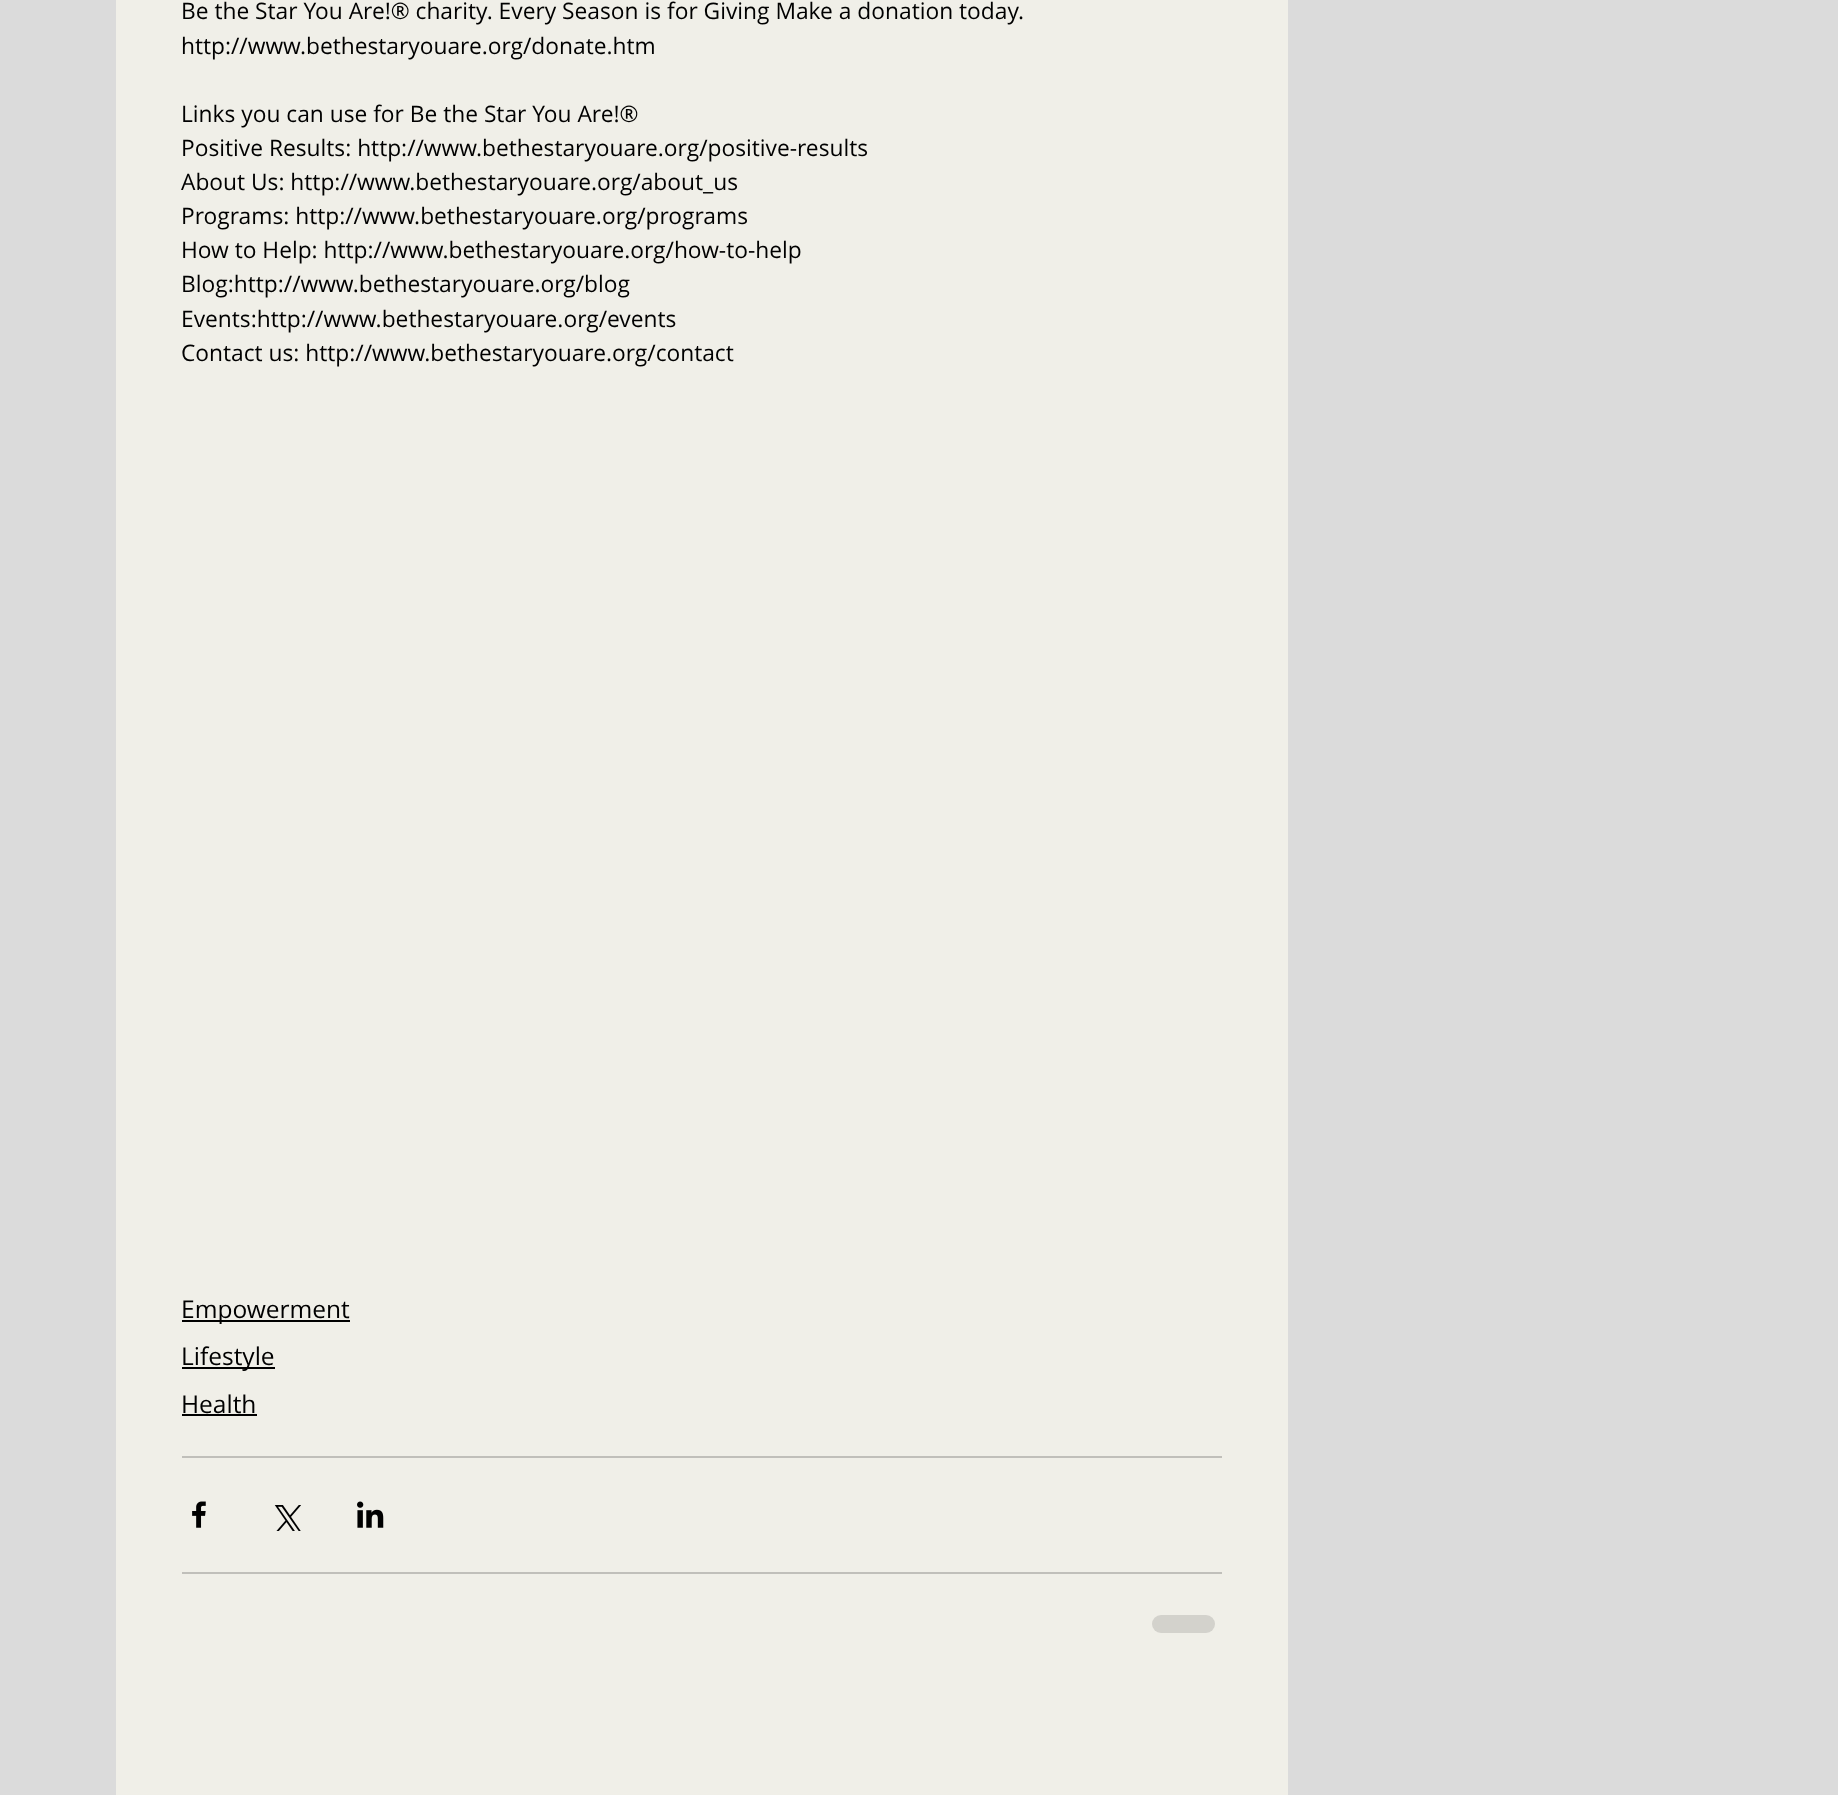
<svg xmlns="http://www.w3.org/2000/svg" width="1838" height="1795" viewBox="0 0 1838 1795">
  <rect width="100%" height="100%" fill="rgb(219,219,219)"/>
  <rect x="116" y="0" width="1172" height="1795" fill="rgb(240,239,232)"/>
  <g font-family="Open Sans" font-size="22.75" fill="rgb(0,0,0)">
    <text>
      <tspan x="181" y="19">Be the Star You Are!® charity. Every Season is for Giving Make a donation today.</tspan>
      <tspan x="181" y="54">http://www.bethestaryouare.org/donate.htm</tspan>
    </text>
    <text>
      <tspan x="181" y="122">Links you can use for Be the Star You Are!®</tspan>
      <tspan x="181" y="156">Positive Results: http://www.bethestaryouare.org/positive-results</tspan>
      <tspan x="181" y="190">About Us: http://www.bethestaryouare.org/about_us</tspan>
      <tspan x="181" y="224">Programs: http://www.bethestaryouare.org/programs</tspan>
      <tspan x="181" y="258">How to Help: http://www.bethestaryouare.org/how-to-help</tspan>
      <tspan x="181" y="292">Blog:http://www.bethestaryouare.org/blog</tspan>
      <tspan x="181" y="327">Events:http://www.bethestaryouare.org/events</tspan>
      <tspan x="181" y="361">Contact us: http://www.bethestaryouare.org/contact</tspan>
    </text>
  </g>
  <rect x="182" y="1320" width="168" height="2" fill="rgb(0,0,0)"/>
  <text x="181" y="1318" font-family="Open Sans" font-size="24.5" fill="rgb(0,0,0)">Empowerment</text>
  <rect x="182" y="1367" width="93" height="2" fill="rgb(0,0,0)"/>
  <g font-family="Open Sans" font-size="24.5" fill="rgb(0,0,0)">
    <text>
      <tspan x="181" y="1365">Lifestyle</tspan>
      <tspan x="181" y="1413">Health</tspan>
    </text>
  </g>
  <rect x="182" y="1414" width="75" height="2" fill="rgb(0,0,0)"/>
  <rect x="182" y="1456" width="1040" height="2" fill="rgb(192,191,186)"/>
  <image x="192" y="1501" width="14" height="27" href="pic1.png"/>
  <image x="274" y="1505" width="27" height="26" href="pic2.png"/>
  <image x="357" y="1501" width="27" height="27" href="pic3.png"/>
  <rect x="182" y="1572" width="1040" height="2" fill="rgb(192,191,186)"/>
  <rect x="1152" y="1615" width="63" height="18" rx="9" fill="rgb(211,210,204)"/>
</svg>
